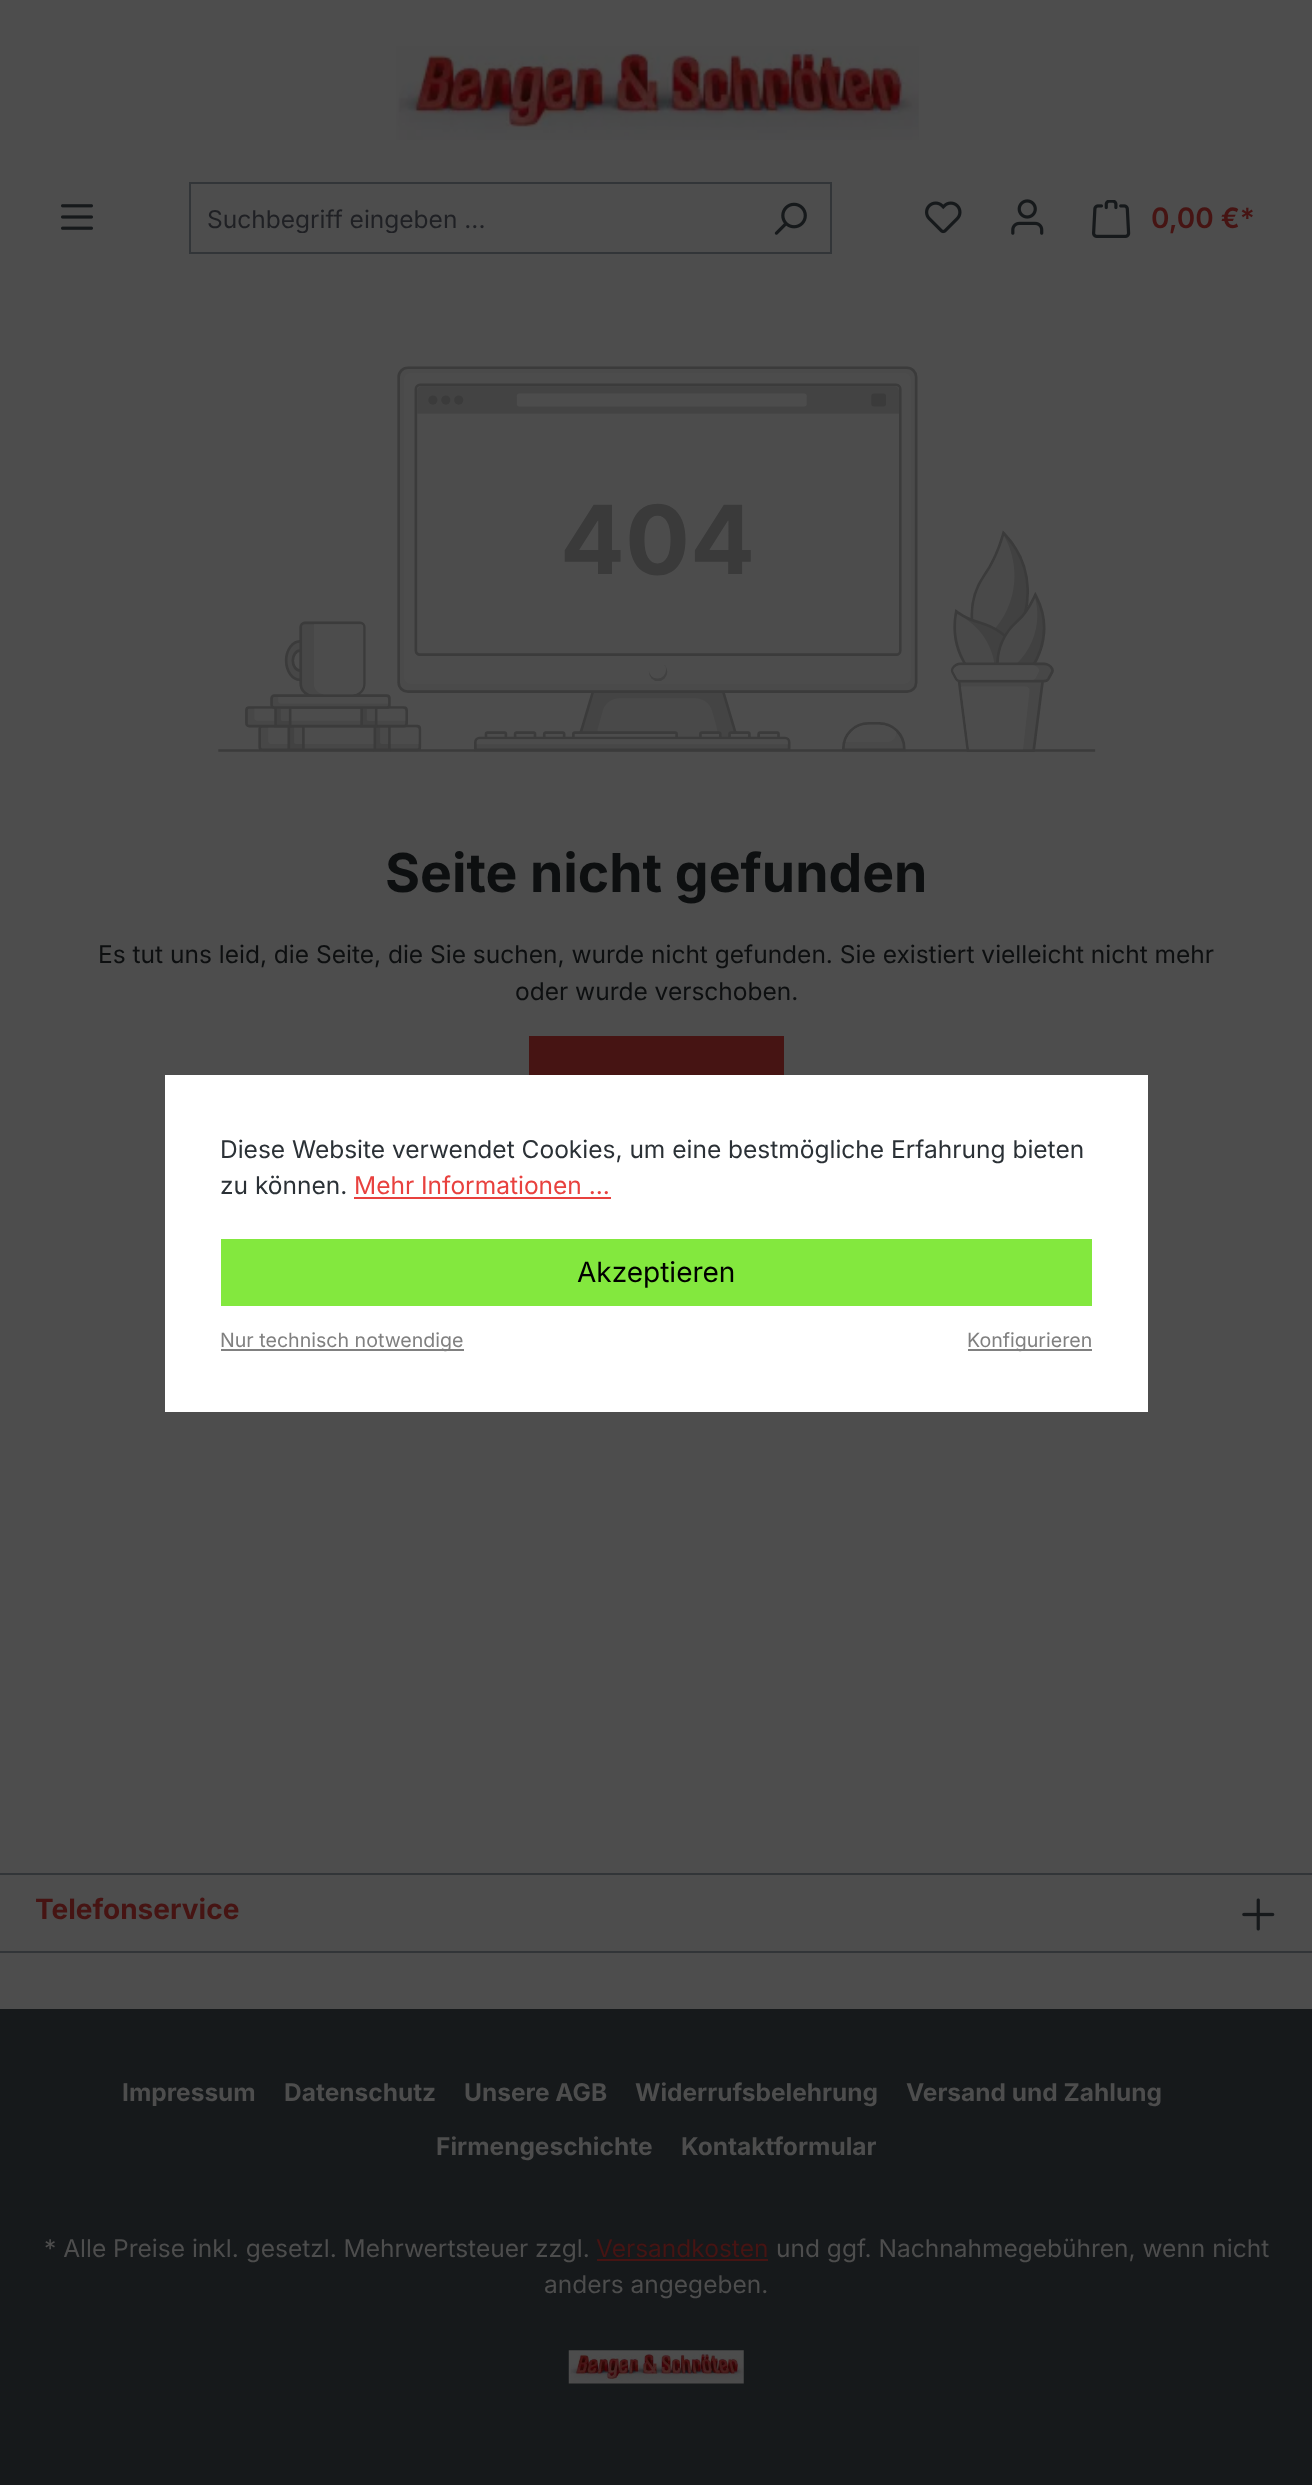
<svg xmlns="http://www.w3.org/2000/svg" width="1312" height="2485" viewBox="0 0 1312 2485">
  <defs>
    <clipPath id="clip1"><rect x="207" y="203" width="528" height="30"/></clipPath>
  </defs>
  <rect width="100%" height="100%" fill="rgb(77,77,77)"/>
  <image x="396" y="46" width="523" height="94" href="pic1.png"/>
  <image x="61" y="204" width="32" height="26" href="pic2.png"/>
  <rect x="189" y="182" width="642" height="2" fill="rgb(50,53,56)"/>
  <rect x="189" y="252" width="562" height="2" fill="rgb(50,53,56)"/>
  <rect x="189" y="182" width="2" height="72" fill="rgb(50,53,56)"/>
  <g clip-path="url(#clip1)">
    <text x="207" y="228" font-family="Inter" font-size="24.5" fill="rgb(31,32,36)">Suchbegriff eingeben ...</text>
  </g>
  <rect x="830" y="182" width="2" height="72" fill="rgb(50,53,56)"/>
  <rect x="749" y="252" width="82" height="2" fill="rgb(50,53,56)"/>
  <image x="774" y="202" width="33" height="33" href="pic3.png"/>
  <image x="925" y="201" width="37" height="33" href="pic4.png"/>
  <image x="1011" y="199" width="33" height="36" href="pic5.png"/>
  <image x="1092" y="200" width="39" height="38" href="pic6.png"/>
  <text x="1151" y="228" font-family="Inter" font-size="28" font-weight="600" fill="rgb(70,20,19)">0,00 €*</text>
  <image x="218" y="366" width="878" height="386" href="pic7.png"/>
  <text x="385" y="892" font-family="Inter" font-size="53.5" font-weight="bold" fill="rgb(13,15,16)">Seite nicht gefunden</text>
  <g font-family="Inter" font-size="24.5" fill="rgb(13,15,16)">
    <text x="98" y="963">Es tut uns leid, die Seite, die Sie suchen, wurde nicht gefunden. Sie existiert vielleicht nicht mehr</text>
    <text x="515" y="1000">oder wurde verschoben.</text>
  </g>
  <rect x="529" y="1036" width="255" height="39" fill="rgb(70,20,19)"/>
  <rect x="165" y="1075" width="983" height="337" fill="rgb(255,255,255)"/>
  <g font-family="Inter" font-size="24.5" fill="rgb(43,49,54)">
    <text>
      <tspan x="220" y="1158">Diese Website verwendet Cookies, um eine bestmögliche Erfahrung bieten</tspan>
      <tspan x="220" y="1194">zu können.</tspan>
    </text>
  </g>
  <text x="354" y="1194" font-family="Inter" font-size="24.5" fill="rgb(232,65,62)">Mehr Informationen ...</text>
  <rect x="354" y="1197" width="257" height="2" fill="rgb(232,65,62)"/>
  <rect x="221" y="1239" width="871" height="67" fill="rgb(131,232,62)"/>
  <text x="577" y="1282" font-family="Inter" font-size="28" fill="rgb(0,0,0)">Akzeptieren</text>
  <rect x="221" y="1349" width="243" height="2" fill="rgb(128,128,128)"/>
  <text x="220" y="1347" font-family="Inter" font-size="19.6" fill="rgb(128,128,128)">Nur technisch notwendige</text>
  <rect x="968" y="1349" width="124" height="2" fill="rgb(128,128,128)"/>
  <text x="967" y="1347" font-family="Inter" font-size="19.6" fill="rgb(128,128,128)">Konfigurieren</text>
  <rect x="0" y="1873" width="1312" height="2" fill="rgb(50,53,56)"/>
  <rect x="0" y="1951" width="1312" height="2" fill="rgb(50,53,56)"/>
  <text x="35" y="1919" font-family="Inter" font-size="28" font-weight="bold" fill="rgb(70,20,19)">Telefonservice</text>
  <image x="1242" y="1898" width="33" height="33" href="pic8.png"/>
  <rect x="0" y="2009" width="1312" height="476" fill="rgb(22,25,27)"/>
  <g font-family="Inter" font-size="24.5" font-weight="bold" fill="rgb(77,77,77)">
    <text x="122" y="2101">Impressum</text>
    <text x="284" y="2101">Datenschutz</text>
    <text x="464" y="2101">Unsere AGB</text>
    <text x="635" y="2101">Widerrufsbelehrung</text>
    <text x="906" y="2101">Versand und Zahlung</text>
    <text x="436" y="2155">Firmengeschichte</text>
    <text x="681" y="2155">Kontaktformular</text>
  </g>
  <text x="44" y="2257" font-family="Inter" font-size="24.5" fill="rgb(77,77,77)">* Alle Preise inkl. gesetzl. Mehrwertsteuer zzgl.</text>
  <text x="596" y="2257" font-family="Inter" font-size="24.5" fill="rgb(70,20,19)">Versandkosten</text>
  <rect x="597" y="2259" width="171" height="2" fill="rgb(70,20,19)"/>
  <g font-family="Inter" font-size="24.5" fill="rgb(77,77,77)">
    <text x="776" y="2257">und ggf. Nachnahmegebühren, wenn nicht</text>
    <text x="544" y="2293">anders angegeben.</text>
  </g>
  <image x="568" y="2350" width="176" height="34" href="pic9.png"/>
</svg>
